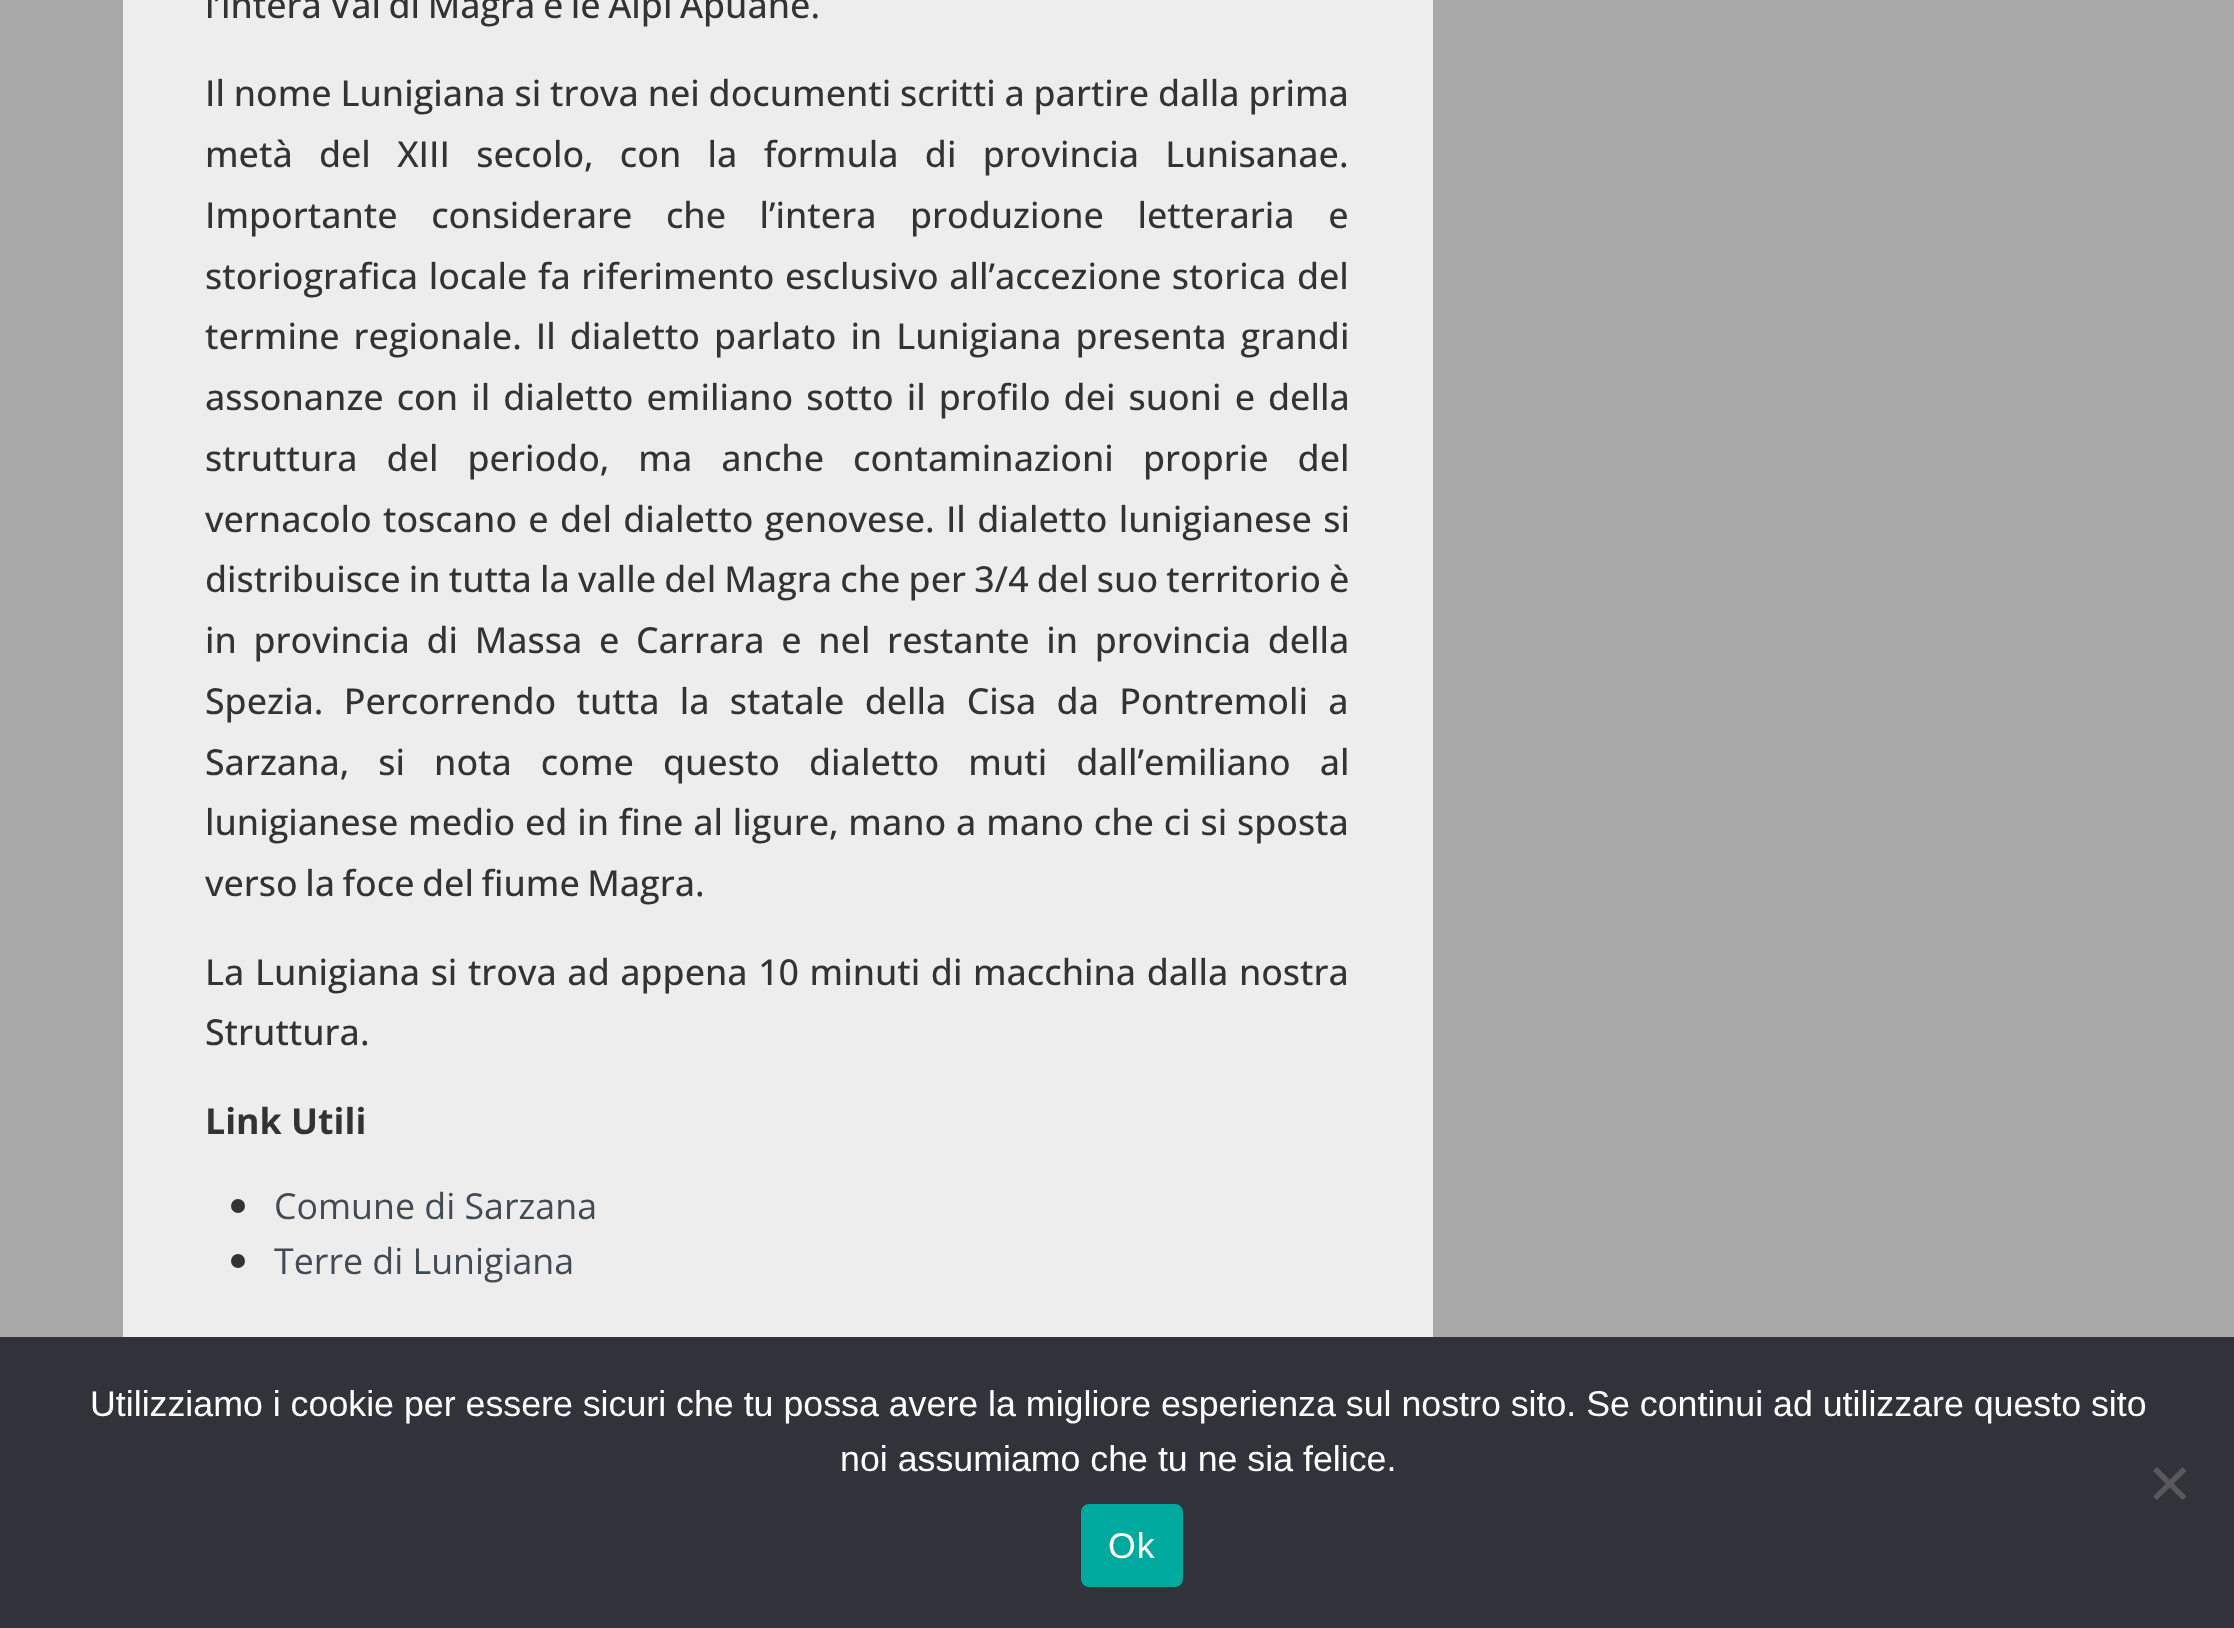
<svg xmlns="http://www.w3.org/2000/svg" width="2234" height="1628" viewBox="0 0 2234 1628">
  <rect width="100%" height="100%" fill="rgb(168,168,168)"/>
  <rect x="123" y="0" width="1310" height="1337" fill="rgb(237,237,237)"/>
  <g font-family="Open Sans" font-size="35.75" font-weight="500" fill="rgb(51,51,51)">
    <text x="205" y="18" word-spacing="-1.75">l’intera Val di Magra e le Alpi Apuane.</text>
    <text>
      <tspan x="205" y="106" word-spacing="-0.5">Il nome Lunigiana si trova nei documenti scritti a partire dalla prima</tspan>
      <tspan x="205" y="167" word-spacing="17">metà del XIII secolo, con la formula di provincia Lunisanae.</tspan>
      <tspan x="205" y="228" word-spacing="24.25">Importante considerare che l’intera produzione letteraria e</tspan>
      <tspan x="205" y="289" word-spacing="1.25">storiografica locale fa riferimento esclusivo all’accezione storica del</tspan>
      <tspan x="205" y="349" word-spacing="4.75">termine regionale. Il dialetto parlato in Lunigiana presenta grandi</tspan>
      <tspan x="205" y="410" word-spacing="3.75">assonanze con il dialetto emiliano sotto il profilo dei suoni e della</tspan>
      <tspan x="205" y="471" word-spacing="19.75">struttura del periodo, ma anche contaminazioni proprie del</tspan>
      <tspan x="205" y="532" word-spacing="2">vernacolo toscano e del dialetto genovese. Il dialetto lunigianese si</tspan>
      <tspan x="205" y="592" word-spacing="-1.1">distribuisce in tutta la valle del Magra che per 3/4 del suo territorio è</tspan>
      <tspan x="205" y="653" word-spacing="7.4">in provincia di Massa e Carrara e nel restante in provincia della</tspan>
      <tspan x="205" y="714" word-spacing="11">Spezia. Percorrendo tutta la statale della Cisa da Pontremoli a</tspan>
      <tspan x="205" y="775" word-spacing="19.75">Sarzana, si nota come questo dialetto muti dall’emiliano al</tspan>
      <tspan x="205" y="835" word-spacing="0.5">lunigianese medio ed in fine al ligure, mano a mano che ci si sposta</tspan>
      <tspan x="205" y="896" word-spacing="-1.75">verso la foce del fiume Magra.</tspan>
    </text>
    <text>
      <tspan x="205" y="985" word-spacing="1.25">La Lunigiana si trova ad appena 10 minuti di macchina dalla nostra</tspan>
      <tspan x="205" y="1045">Struttura.</tspan>
    </text>
  </g>
  <text x="205" y="1134" font-family="Open Sans" font-size="35.75" font-weight="bold" fill="rgb(51,51,51)">Link Utili</text>
  <circle cx="238" cy="1206" r="7" fill="rgb(51,51,51)"/>
  <text x="274" y="1219" font-family="Open Sans" font-size="35.75" fill="rgb(66,74,82)">Comune di Sarzana</text>
  <circle cx="238" cy="1261" r="7" fill="rgb(51,51,51)"/>
  <text x="274" y="1274" font-family="Open Sans" font-size="35.75" fill="rgb(66,74,82)">Terre di Lunigiana</text>
  <rect x="0" y="1337" width="2234" height="291" fill="rgb(50,50,58)"/>
  <g font-family="Liberation Sans" font-size="35.75" fill="rgb(255,255,255)">
    <text x="90" y="1416">Utilizziamo i cookie per essere sicuri che tu possa avere la migliore esperienza sul nostro sito. Se continui ad utilizzare questo sito</text>
    <text x="840" y="1471">noi assumiamo che tu ne sia felice.</text>
  </g>
  <path d="M2182.5 1467L2186.5 1471L2157 1500L2153 1496.5Z" fill="rgb(89,89,93)"/>
  <path d="M2153 1471L2157 1467L2186.5 1496.5L2182.5 1500Z" fill="rgb(89,89,93)"/>
  <rect x="1081" y="1504" width="102" height="83" rx="8" fill="rgb(0,169,157)"/>
  <text x="1108" y="1558" font-family="Liberation Sans" font-size="35.75" letter-spacing="1" fill="rgb(255,255,255)">Ok</text>
</svg>
